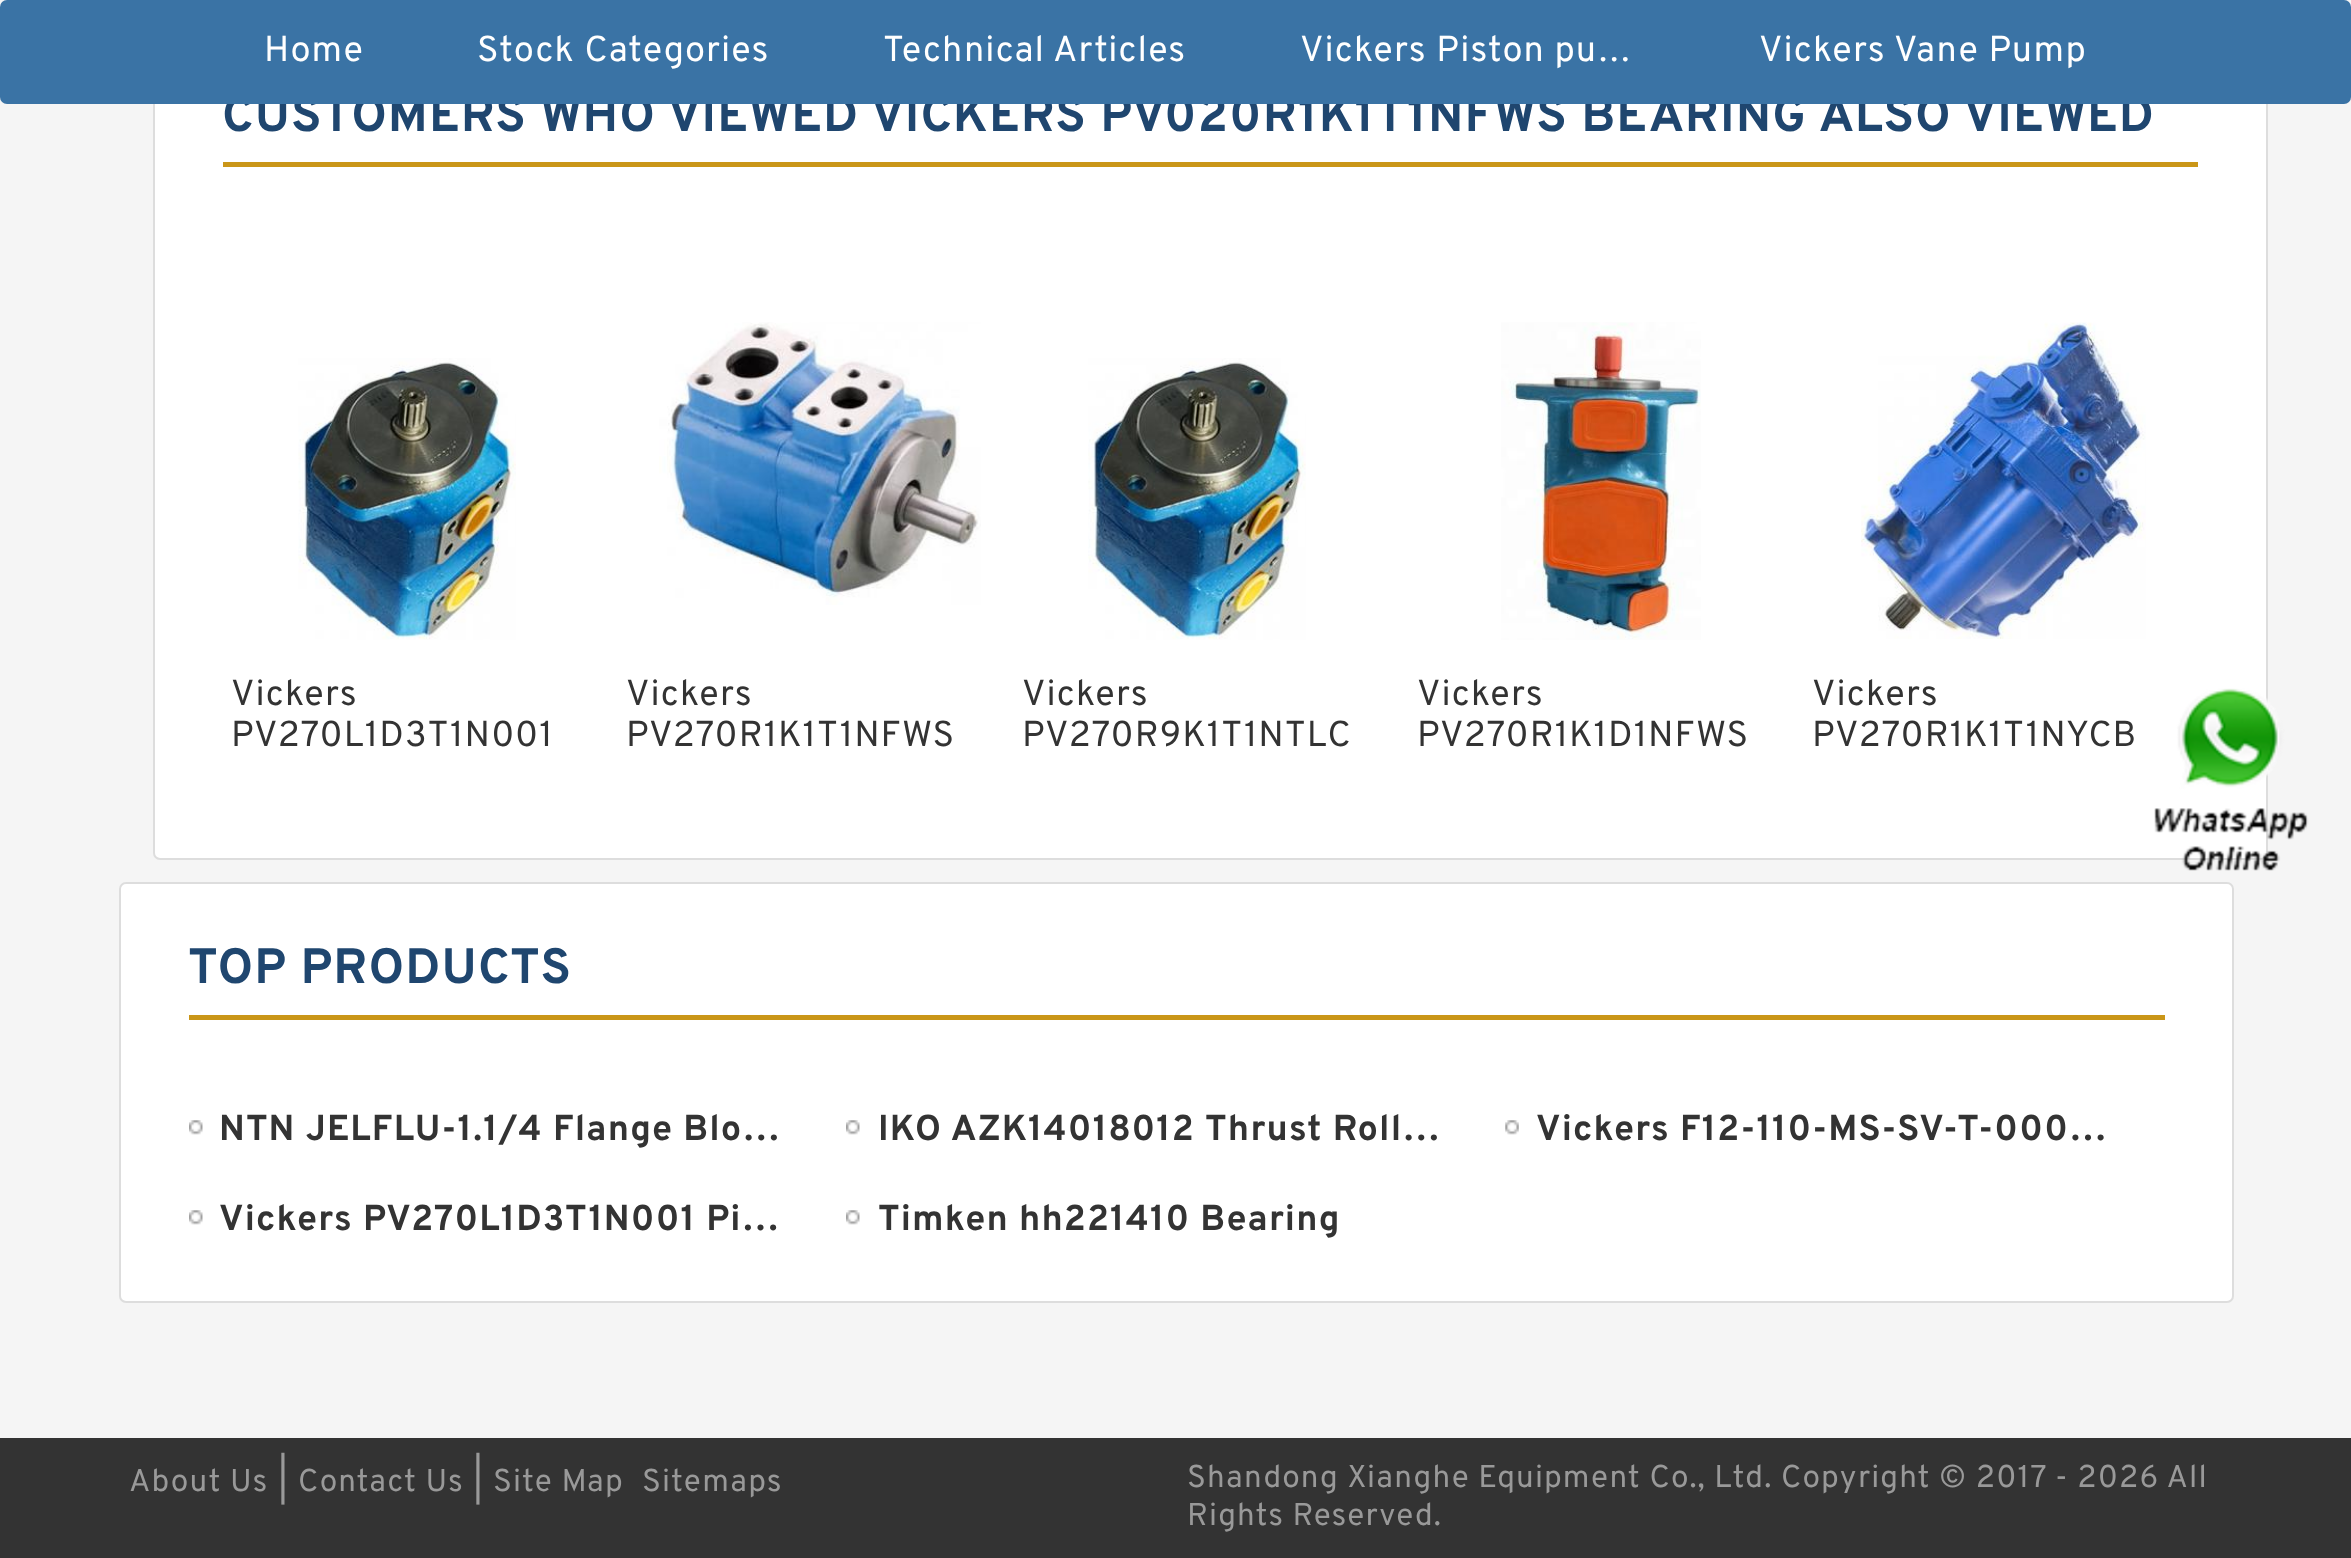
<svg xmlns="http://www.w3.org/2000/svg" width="2351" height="1558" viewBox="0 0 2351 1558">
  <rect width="100%" height="100%" fill="rgb(245,245,245)"/>
  <rect x="154" y="30" width="2113" height="829" rx="6" fill="rgb(255,255,255)" stroke="rgb(221,221,221)" stroke-width="2"/>
  <text x="222" y="131" font-family="Overpass" font-size="49.5" font-weight="bold" letter-spacing="1.12" fill="rgb(31,70,111)">CUSTOMERS WHO VIEWED VICKERS PV020R1K1T1NFWS BEARING ALSO VIEWED</text>
  <rect x="0" y="0" width="2351" height="104" rx="7" fill="rgb(58,115,165)"/>
  <g font-family="Overpass" font-size="36" letter-spacing="1.12" fill="rgb(255,255,255)">
    <text x="264" y="61">Home</text>
    <text x="477" y="61">Stock Categories</text>
    <text x="883" y="61">Technical</text>
    <text x="1053" y="61">Articles</text>
    <text x="1300" y="61">Vickers Piston pu…</text>
    <text x="1759" y="61">Vickers Vane Pump</text>
  </g>
  <rect x="223" y="162" width="1975" height="5" fill="rgb(202,150,24)"/>
  <image x="298" y="358" width="218" height="282" href="pic1.png"/>
  <g font-family="Overpass" font-size="36" letter-spacing="1.12" fill="rgb(51,51,51)">
    <text>
      <tspan x="231" y="705">Vickers</tspan>
      <tspan x="231" y="746">PV270L1D3T1N001</tspan>
    </text>
  </g>
  <image x="659" y="322" width="322" height="283" href="pic2.png"/>
  <g font-family="Overpass" font-size="36" letter-spacing="1.12" fill="rgb(51,51,51)">
    <text>
      <tspan x="626" y="705">Vickers</tspan>
      <tspan x="626" y="746">PV270R1K1T1NFWS</tspan>
    </text>
  </g>
  <image x="1088" y="358" width="218" height="282" href="pic3.png"/>
  <g font-family="Overpass" font-size="36" letter-spacing="1.12" fill="rgb(51,51,51)">
    <text>
      <tspan x="1022" y="705">Vickers</tspan>
      <tspan x="1022" y="746">PV270R9K1T1NTLC</tspan>
    </text>
  </g>
  <image x="1501" y="322" width="200" height="318" href="pic4.png"/>
  <g font-family="Overpass" font-size="36" letter-spacing="1.12" fill="rgb(51,51,51)">
    <text>
      <tspan x="1417" y="705">Vickers</tspan>
      <tspan x="1417" y="746">PV270R1K1D1NFWS</tspan>
    </text>
  </g>
  <image x="1861" y="322" width="285" height="317" href="pic5.png"/>
  <g font-family="Overpass" font-size="36" letter-spacing="1.12" fill="rgb(51,51,51)">
    <text>
      <tspan x="1812" y="705">Vickers</tspan>
      <tspan x="1812" y="746">PV270R1K1T1NYCB</tspan>
    </text>
  </g>
  <rect x="120" y="883" width="2113" height="419" rx="6" fill="rgb(255,255,255)" stroke="rgb(221,221,221)" stroke-width="2"/>
  <rect x="189" y="1015" width="1976" height="5" fill="rgb(202,150,24)"/>
  <text x="188" y="983" font-family="Overpass" font-size="49.5" font-weight="bold" letter-spacing="1.12" fill="rgb(31,70,111)">TOP PRODUCTS</text>
  <image x="189" y="1120" width="14" height="15" href="pic6.png"/>
  <text x="219" y="1140" font-family="Overpass" font-size="36" font-weight="bold" letter-spacing="1.12" fill="rgb(51,51,51)">NTN JELFLU-1.1/4 Flange Blo…</text>
  <image x="846" y="1120" width="14" height="15" href="pic7.png"/>
  <text x="878" y="1140" font-family="Overpass" font-size="36" font-weight="bold" letter-spacing="1.12" fill="rgb(51,51,51)">IKO AZK14018012 Thrust Roll…</text>
  <image x="1505" y="1120" width="14" height="15" href="pic8.png"/>
  <text x="1536" y="1140" font-family="Overpass" font-size="36" font-weight="bold" letter-spacing="1.12" fill="rgb(51,51,51)">Vickers F12-110-MS-SV-T-000…</text>
  <image x="189" y="1210" width="14" height="15" href="pic6.png"/>
  <text x="219" y="1230" font-family="Overpass" font-size="36" font-weight="bold" letter-spacing="1.12" fill="rgb(51,51,51)">Vickers PV270L1D3T1N001 Pi…</text>
  <image x="846" y="1210" width="14" height="15" href="pic7.png"/>
  <text x="878" y="1230" font-family="Overpass" font-size="36" font-weight="bold" letter-spacing="1.12" fill="rgb(51,51,51)">Timken hh221410 Bearing</text>
  <image x="2154" y="688" width="155" height="183" href="pic9.png"/>
  <rect x="0" y="1438" width="2351" height="120" fill="rgb(51,51,51)"/>
  <text x="129" y="1491" font-family="Overpass" font-size="31.5" letter-spacing="1.12" fill="rgb(153,153,153)">About Us</text>
  <text x="278" y="1491" font-family="Overpass" font-size="36" letter-spacing="1.12" fill="rgb(153,153,153)">|</text>
  <text x="298" y="1491" font-family="Overpass" font-size="31.5" letter-spacing="1.12" fill="rgb(153,153,153)">Contact Us</text>
  <text x="473" y="1491" font-family="Overpass" font-size="36" letter-spacing="1.12" fill="rgb(153,153,153)">|</text>
  <g font-family="Overpass" font-size="31.5" letter-spacing="1.12" fill="rgb(153,153,153)">
    <text x="493" y="1491">Site Map</text>
    <text x="642" y="1491">Sitemaps</text>
    <text>
      <tspan x="1187" y="1487">Shandong Xianghe Equipment Co., Ltd. Copyright © 2017 - 2026 All</tspan>
      <tspan x="1187" y="1525">Rights Reserved.</tspan>
    </text>
  </g>
</svg>
